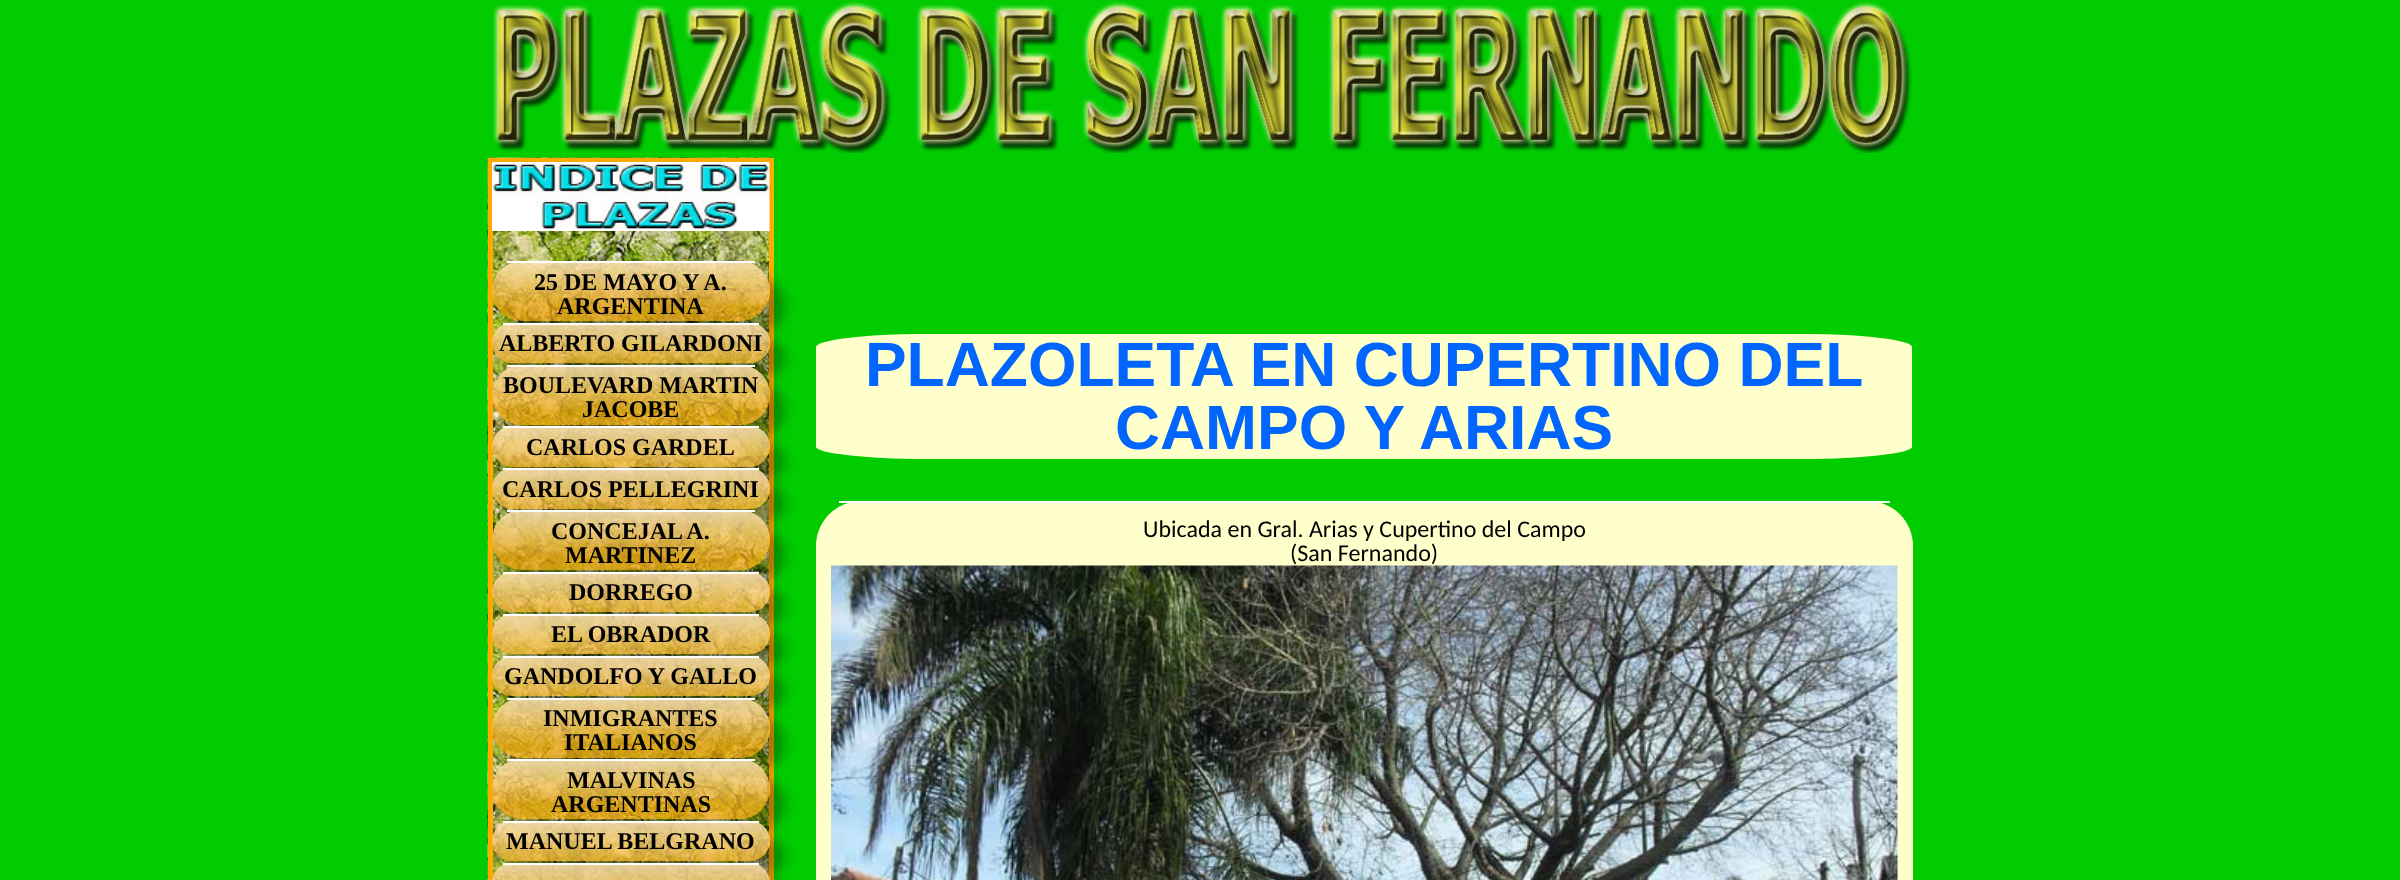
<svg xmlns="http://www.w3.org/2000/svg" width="2400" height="880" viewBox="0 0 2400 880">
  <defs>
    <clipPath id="clip1"><path d="M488 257H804V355H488ZM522 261H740C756.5 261 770 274.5 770 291C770 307.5 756.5 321 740 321H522C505.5 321 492 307.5 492 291C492 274.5 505.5 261 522 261Z" clip-rule="evenodd"/></clipPath>
    <clipPath id="clip2"><rect x="492" y="261" width="278" height="60" rx="30"/></clipPath>
    <linearGradient id="g1" gradientUnits="userSpaceOnUse" x1="631" y1="263" x2="631" y2="321"><stop offset="0" stop-color="rgb(255,255,255)" stop-opacity="0.6"/><stop offset="0.77" stop-color="rgb(255,255,255)" stop-opacity="0"/></linearGradient>
    <clipPath id="clip3"><path d="M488 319H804V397H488ZM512 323H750C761 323 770 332 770 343C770 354 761 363 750 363H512C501 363 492 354 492 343C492 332 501 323 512 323Z" clip-rule="evenodd"/></clipPath>
    <clipPath id="clip4"><rect x="492" y="323" width="278" height="40" rx="20"/></clipPath>
    <linearGradient id="g2" gradientUnits="userSpaceOnUse" x1="631" y1="324" x2="631" y2="369"><stop offset="0" stop-color="rgb(255,255,255)" stop-opacity="0.6"/><stop offset="1" stop-color="rgb(255,255,255)" stop-opacity="0"/></linearGradient>
    <clipPath id="clip5"><path d="M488 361H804V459H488ZM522 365H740C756.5 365 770 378.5 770 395C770 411.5 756.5 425 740 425H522C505.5 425 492 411.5 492 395C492 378.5 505.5 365 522 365Z" clip-rule="evenodd"/></clipPath>
    <clipPath id="clip6"><rect x="492" y="365" width="278" height="60" rx="30"/></clipPath>
    <linearGradient id="g3" gradientUnits="userSpaceOnUse" x1="631" y1="366" x2="631" y2="425"><stop offset="0" stop-color="rgb(255,255,255)" stop-opacity="0.6"/><stop offset="0.77" stop-color="rgb(255,255,255)" stop-opacity="0"/></linearGradient>
    <clipPath id="clip7"><path d="M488 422H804V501H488ZM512.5 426H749.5C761 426 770 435 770 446.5C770 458 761 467 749.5 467H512.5C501 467 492 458 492 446.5C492 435 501 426 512.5 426Z" clip-rule="evenodd"/></clipPath>
    <clipPath id="clip8"><rect x="492" y="426" width="278" height="41" rx="20.5"/></clipPath>
    <linearGradient id="g4" gradientUnits="userSpaceOnUse" x1="631" y1="428" x2="631" y2="473"><stop offset="0" stop-color="rgb(255,255,255)" stop-opacity="0.6"/><stop offset="1" stop-color="rgb(255,255,255)" stop-opacity="0"/></linearGradient>
    <clipPath id="clip9"><path d="M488 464H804V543H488ZM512.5 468H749.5C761 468 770 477 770 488.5C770 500 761 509 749.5 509H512.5C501 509 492 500 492 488.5C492 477 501 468 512.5 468Z" clip-rule="evenodd"/></clipPath>
    <clipPath id="clip10"><rect x="492" y="468" width="278" height="41" rx="20.5"/></clipPath>
    <linearGradient id="g5" gradientUnits="userSpaceOnUse" x1="631" y1="470" x2="631" y2="515"><stop offset="0" stop-color="rgb(255,255,255)" stop-opacity="0.6"/><stop offset="1" stop-color="rgb(255,255,255)" stop-opacity="0"/></linearGradient>
    <clipPath id="clip11"><path d="M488 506H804V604H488ZM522 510H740C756.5 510 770 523.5 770 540C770 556.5 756.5 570 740 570H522C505.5 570 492 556.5 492 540C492 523.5 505.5 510 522 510Z" clip-rule="evenodd"/></clipPath>
    <clipPath id="clip12"><rect x="492" y="510" width="278" height="60" rx="30"/></clipPath>
    <linearGradient id="g6" gradientUnits="userSpaceOnUse" x1="631" y1="512" x2="631" y2="570"><stop offset="0" stop-color="rgb(255,255,255)" stop-opacity="0.6"/><stop offset="0.77" stop-color="rgb(255,255,255)" stop-opacity="0"/></linearGradient>
    <clipPath id="clip13"><path d="M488 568H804V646H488ZM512 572H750C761 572 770 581 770 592C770 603 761 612 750 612H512C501 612 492 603 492 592C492 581 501 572 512 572Z" clip-rule="evenodd"/></clipPath>
    <clipPath id="clip14"><rect x="492" y="572" width="278" height="40" rx="20"/></clipPath>
    <linearGradient id="g7" gradientUnits="userSpaceOnUse" x1="631" y1="573" x2="631" y2="618"><stop offset="0" stop-color="rgb(255,255,255)" stop-opacity="0.6"/><stop offset="1" stop-color="rgb(255,255,255)" stop-opacity="0"/></linearGradient>
    <clipPath id="clip15"><path d="M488 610H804V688H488ZM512 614H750C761 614 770 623 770 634C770 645 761 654 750 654H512C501 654 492 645 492 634C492 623 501 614 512 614Z" clip-rule="evenodd"/></clipPath>
    <clipPath id="clip16"><rect x="492" y="614" width="278" height="40" rx="20"/></clipPath>
    <linearGradient id="g8" gradientUnits="userSpaceOnUse" x1="631" y1="615" x2="631" y2="660"><stop offset="0" stop-color="rgb(255,255,255)" stop-opacity="0.6"/><stop offset="1" stop-color="rgb(255,255,255)" stop-opacity="0"/></linearGradient>
    <clipPath id="clip17"><path d="M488 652H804V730H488ZM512 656H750C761 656 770 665 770 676C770 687 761 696 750 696H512C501 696 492 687 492 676C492 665 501 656 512 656Z" clip-rule="evenodd"/></clipPath>
    <clipPath id="clip18"><rect x="492" y="656" width="278" height="40" rx="20"/></clipPath>
    <linearGradient id="g9" gradientUnits="userSpaceOnUse" x1="631" y1="657" x2="631" y2="702"><stop offset="0" stop-color="rgb(255,255,255)" stop-opacity="0.6"/><stop offset="1" stop-color="rgb(255,255,255)" stop-opacity="0"/></linearGradient>
    <clipPath id="clip19"><path d="M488 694H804V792H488ZM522 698H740C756.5 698 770 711.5 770 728C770 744.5 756.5 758 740 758H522C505.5 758 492 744.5 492 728C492 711.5 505.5 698 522 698Z" clip-rule="evenodd"/></clipPath>
    <clipPath id="clip20"><rect x="492" y="698" width="278" height="60" rx="30"/></clipPath>
    <linearGradient id="g10" gradientUnits="userSpaceOnUse" x1="631" y1="699" x2="631" y2="758"><stop offset="0" stop-color="rgb(255,255,255)" stop-opacity="0.6"/><stop offset="0.77" stop-color="rgb(255,255,255)" stop-opacity="0"/></linearGradient>
    <clipPath id="clip21"><path d="M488 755H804V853H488ZM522 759H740C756.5 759 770 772.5 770 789C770 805.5 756.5 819 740 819H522C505.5 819 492 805.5 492 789C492 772.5 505.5 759 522 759Z" clip-rule="evenodd"/></clipPath>
    <clipPath id="clip22"><rect x="492" y="759" width="278" height="60" rx="30"/></clipPath>
    <linearGradient id="g11" gradientUnits="userSpaceOnUse" x1="631" y1="761" x2="631" y2="819"><stop offset="0" stop-color="rgb(255,255,255)" stop-opacity="0.6"/><stop offset="0.77" stop-color="rgb(255,255,255)" stop-opacity="0"/></linearGradient>
    <clipPath id="clip23"><path d="M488 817H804V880H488ZM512 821H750C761 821 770 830 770 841C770 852 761 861 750 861H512C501 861 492 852 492 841C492 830 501 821 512 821Z" clip-rule="evenodd"/></clipPath>
    <clipPath id="clip24"><rect x="492" y="821" width="278" height="40" rx="20"/></clipPath>
    <linearGradient id="g12" gradientUnits="userSpaceOnUse" x1="631" y1="822" x2="631" y2="867"><stop offset="0" stop-color="rgb(255,255,255)" stop-opacity="0.6"/><stop offset="1" stop-color="rgb(255,255,255)" stop-opacity="0"/></linearGradient>
    <clipPath id="clip25"><path d="M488 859H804V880H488ZM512 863H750C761 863 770 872 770 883C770 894 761 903 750 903H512C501 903 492 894 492 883C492 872 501 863 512 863Z" clip-rule="evenodd"/></clipPath>
    <clipPath id="clip26"><rect x="492" y="863" width="278" height="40" rx="20"/></clipPath>
    <linearGradient id="g13" gradientUnits="userSpaceOnUse" x1="631" y1="864" x2="631" y2="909"><stop offset="0" stop-color="rgb(255,255,255)" stop-opacity="0.6"/><stop offset="1" stop-color="rgb(255,255,255)" stop-opacity="0"/></linearGradient>
  </defs>
  <rect width="100%" height="100%" fill="rgb(0,204,0)"/>
  <image x="492" y="0" width="1421" height="153" href="pic1.png"/>
  <image x="487" y="157" width="287" height="723" href="pic2.png"/>
  <rect x="490.5" y="160.5" width="281" height="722" fill="none" stroke="rgb(255,170,0)" stroke-width="5"/>
  <image x="492" y="162" width="278" height="69" href="pic3.png"/>
  <g clip-path="url(#clip1)">
    <rect x="507" y="276" width="278" height="60" rx="30" fill="rgba(0,0,0,0.3)" filter="blur(6px)"/>
  </g>
  <rect x="492" y="261" width="278" height="60" rx="30" fill="rgba(242,162,13,0.7)"/>
  <g clip-path="url(#clip2)">
    <path d="M492 263H770V291C770 307.5 756.5 321 740 321H522C505.5 321 492 307.5 492 291Z" fill="url(#g1)"/>
  </g>
  <rect x="507" y="261" width="248" height="2" fill="rgb(255,255,255)"/>
  <g font-family="Liberation Serif" font-size="24" font-weight="bold" fill="rgb(0,0,0)">
    <text x="534" y="290">25 DE MAYO Y A.</text>
    <text x="557" y="314">ARGENTINA</text>
  </g>
  <g clip-path="url(#clip3)">
    <rect x="507" y="338" width="278" height="40" rx="20" fill="rgba(0,0,0,0.3)" filter="blur(6px)"/>
  </g>
  <rect x="492" y="323" width="278" height="40" rx="20" fill="rgba(242,162,13,0.7)"/>
  <g clip-path="url(#clip4)">
    <path d="M492 324H770V343C770 354 761 363 750 363H512C501 363 492 354 492 343Z" fill="url(#g2)"/>
  </g>
  <rect x="503" y="323" width="256" height="2" fill="rgb(255,255,255)"/>
  <text x="499" y="351" font-family="Liberation Serif" font-size="24" font-weight="bold" fill="rgb(0,0,0)">ALBERTO GILARDONI</text>
  <g clip-path="url(#clip5)">
    <rect x="507" y="380" width="278" height="60" rx="30" fill="rgba(0,0,0,0.3)" filter="blur(6px)"/>
  </g>
  <rect x="492" y="365" width="278" height="60" rx="30" fill="rgba(242,162,13,0.7)"/>
  <g clip-path="url(#clip6)">
    <path d="M492 366H770V395C770 411.5 756.5 425 740 425H522C505.5 425 492 411.5 492 395Z" fill="url(#g3)"/>
  </g>
  <rect x="507" y="365" width="248" height="2" fill="rgb(255,255,255)"/>
  <g font-family="Liberation Serif" font-size="24" font-weight="bold" fill="rgb(0,0,0)">
    <text x="503" y="393">BOULEVARD MARTIN</text>
    <text x="582" y="417">JACOBE</text>
  </g>
  <g clip-path="url(#clip7)">
    <rect x="507" y="441" width="278" height="41" rx="20.5" fill="rgba(0,0,0,0.3)" filter="blur(6px)"/>
  </g>
  <rect x="492" y="426" width="278" height="41" rx="20.5" fill="rgba(242,162,13,0.7)"/>
  <g clip-path="url(#clip8)">
    <path d="M492 428H770V446.5C770 458 761 467 749.5 467H512.5C501 467 492 458 492 446.5Z" fill="url(#g4)"/>
  </g>
  <rect x="503" y="426" width="256" height="2" fill="rgb(255,255,255)"/>
  <text x="526" y="455" font-family="Liberation Serif" font-size="24" font-weight="bold" fill="rgb(0,0,0)">CARLOS GARDEL</text>
  <g clip-path="url(#clip9)">
    <rect x="507" y="483" width="278" height="41" rx="20.5" fill="rgba(0,0,0,0.3)" filter="blur(6px)"/>
  </g>
  <rect x="492" y="468" width="278" height="41" rx="20.5" fill="rgba(242,162,13,0.7)"/>
  <g clip-path="url(#clip10)">
    <path d="M492 470H770V488.5C770 500 761 509 749.5 509H512.5C501 509 492 500 492 488.5Z" fill="url(#g5)"/>
  </g>
  <rect x="503" y="468" width="256" height="2" fill="rgb(255,255,255)"/>
  <text x="502" y="497" font-family="Liberation Serif" font-size="24" font-weight="bold" fill="rgb(0,0,0)">CARLOS PELLEGRINI</text>
  <g clip-path="url(#clip11)">
    <rect x="507" y="525" width="278" height="60" rx="30" fill="rgba(0,0,0,0.3)" filter="blur(6px)"/>
  </g>
  <rect x="492" y="510" width="278" height="60" rx="30" fill="rgba(242,162,13,0.7)"/>
  <g clip-path="url(#clip12)">
    <path d="M492 512H770V540C770 556.5 756.5 570 740 570H522C505.5 570 492 556.5 492 540Z" fill="url(#g6)"/>
  </g>
  <rect x="507" y="510" width="248" height="2" fill="rgb(255,255,255)"/>
  <g font-family="Liberation Serif" font-size="24" font-weight="bold" fill="rgb(0,0,0)">
    <text x="551" y="539">CONCEJAL A.</text>
    <text x="565" y="563">MARTINEZ</text>
  </g>
  <g clip-path="url(#clip13)">
    <rect x="507" y="587" width="278" height="40" rx="20" fill="rgba(0,0,0,0.3)" filter="blur(6px)"/>
  </g>
  <rect x="492" y="572" width="278" height="40" rx="20" fill="rgba(242,162,13,0.7)"/>
  <g clip-path="url(#clip14)">
    <path d="M492 573H770V592C770 603 761 612 750 612H512C501 612 492 603 492 592Z" fill="url(#g7)"/>
  </g>
  <rect x="503" y="572" width="256" height="2" fill="rgb(255,255,255)"/>
  <text x="569" y="600" font-family="Liberation Serif" font-size="24" font-weight="bold" fill="rgb(0,0,0)">DORREGO</text>
  <g clip-path="url(#clip15)">
    <rect x="507" y="629" width="278" height="40" rx="20" fill="rgba(0,0,0,0.3)" filter="blur(6px)"/>
  </g>
  <rect x="492" y="614" width="278" height="40" rx="20" fill="rgba(242,162,13,0.7)"/>
  <g clip-path="url(#clip16)">
    <path d="M492 615H770V634C770 645 761 654 750 654H512C501 654 492 645 492 634Z" fill="url(#g8)"/>
  </g>
  <rect x="503" y="614" width="256" height="2" fill="rgb(255,255,255)"/>
  <text x="551" y="642" font-family="Liberation Serif" font-size="24" font-weight="bold" fill="rgb(0,0,0)">EL OBRADOR</text>
  <g clip-path="url(#clip17)">
    <rect x="507" y="671" width="278" height="40" rx="20" fill="rgba(0,0,0,0.3)" filter="blur(6px)"/>
  </g>
  <rect x="492" y="656" width="278" height="40" rx="20" fill="rgba(242,162,13,0.7)"/>
  <g clip-path="url(#clip18)">
    <path d="M492 657H770V676C770 687 761 696 750 696H512C501 696 492 687 492 676Z" fill="url(#g9)"/>
  </g>
  <rect x="503" y="656" width="256" height="2" fill="rgb(255,255,255)"/>
  <text x="504" y="684" font-family="Liberation Serif" font-size="24" font-weight="bold" fill="rgb(0,0,0)">GANDOLFO Y GALLO</text>
  <g clip-path="url(#clip19)">
    <rect x="507" y="713" width="278" height="60" rx="30" fill="rgba(0,0,0,0.3)" filter="blur(6px)"/>
  </g>
  <rect x="492" y="698" width="278" height="60" rx="30" fill="rgba(242,162,13,0.7)"/>
  <g clip-path="url(#clip20)">
    <path d="M492 699H770V728C770 744.5 756.5 758 740 758H522C505.5 758 492 744.5 492 728Z" fill="url(#g10)"/>
  </g>
  <rect x="507" y="698" width="248" height="2" fill="rgb(255,255,255)"/>
  <g font-family="Liberation Serif" font-size="24" font-weight="bold" fill="rgb(0,0,0)">
    <text x="543" y="726">INMIGRANTES</text>
    <text x="564" y="750">ITALIANOS</text>
  </g>
  <g clip-path="url(#clip21)">
    <rect x="507" y="774" width="278" height="60" rx="30" fill="rgba(0,0,0,0.3)" filter="blur(6px)"/>
  </g>
  <rect x="492" y="759" width="278" height="60" rx="30" fill="rgba(242,162,13,0.7)"/>
  <g clip-path="url(#clip22)">
    <path d="M492 761H770V789C770 805.5 756.5 819 740 819H522C505.5 819 492 805.5 492 789Z" fill="url(#g11)"/>
  </g>
  <rect x="507" y="759" width="248" height="2" fill="rgb(255,255,255)"/>
  <g font-family="Liberation Serif" font-size="24" font-weight="bold" fill="rgb(0,0,0)">
    <text x="567" y="788">MALVINAS</text>
    <text x="551" y="812">ARGENTINAS</text>
  </g>
  <g clip-path="url(#clip23)">
    <rect x="507" y="836" width="278" height="40" rx="20" fill="rgba(0,0,0,0.3)" filter="blur(6px)"/>
  </g>
  <rect x="492" y="821" width="278" height="40" rx="20" fill="rgba(242,162,13,0.7)"/>
  <g clip-path="url(#clip24)">
    <path d="M492 822H770V841C770 852 761 861 750 861H512C501 861 492 852 492 841Z" fill="url(#g12)"/>
  </g>
  <rect x="503" y="821" width="256" height="2" fill="rgb(255,255,255)"/>
  <text x="506" y="849" font-family="Liberation Serif" font-size="24" font-weight="bold" fill="rgb(0,0,0)">MANUEL BELGRANO</text>
  <g clip-path="url(#clip25)">
    <rect x="507" y="878" width="278" height="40" rx="20" fill="rgba(0,0,0,0.3)" filter="blur(6px)"/>
  </g>
  <rect x="492" y="863" width="278" height="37" rx="20" fill="rgba(242,162,13,0.7)"/>
  <g clip-path="url(#clip26)">
    <path d="M492 864H770V880C770 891 761 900 750 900H512C501 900 492 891 492 880Z" fill="url(#g13)"/>
  </g>
  <rect x="503" y="863" width="256" height="2" fill="rgb(255,255,255)"/>
  <path d="M926 334H1803C1863 334 1912 340 1912 347V447C1912 453 1863 459 1803 459H926C865 459 816 453 816 447V347C816 340 865 334 926 334Z" fill="rgb(255,255,204)"/>
  <g font-family="Liberation Sans" font-size="62.4" font-weight="bold" fill="rgb(0,102,255)">
    <text x="865" y="386">PLAZOLETA EN CUPERTINO DEL</text>
    <text x="1115" y="449">CAMPO Y ARIAS</text>
  </g>
  <rect x="816" y="501" width="1097" height="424" rx="45" fill="rgb(255,255,204)"/>
  <rect x="839" y="501" width="1051" height="2" fill="rgb(255,255,255)"/>
  <g font-family="Carlito" font-size="24" fill="rgb(0,0,0)">
    <text x="1143" y="537">Ubicada en Gral. Arias y Cupertino del Campo</text>
    <text x="1290" y="561">(San Fernando)</text>
  </g>
  <image x="831" y="565" width="1067" height="315" href="pic4.png"/>
</svg>
